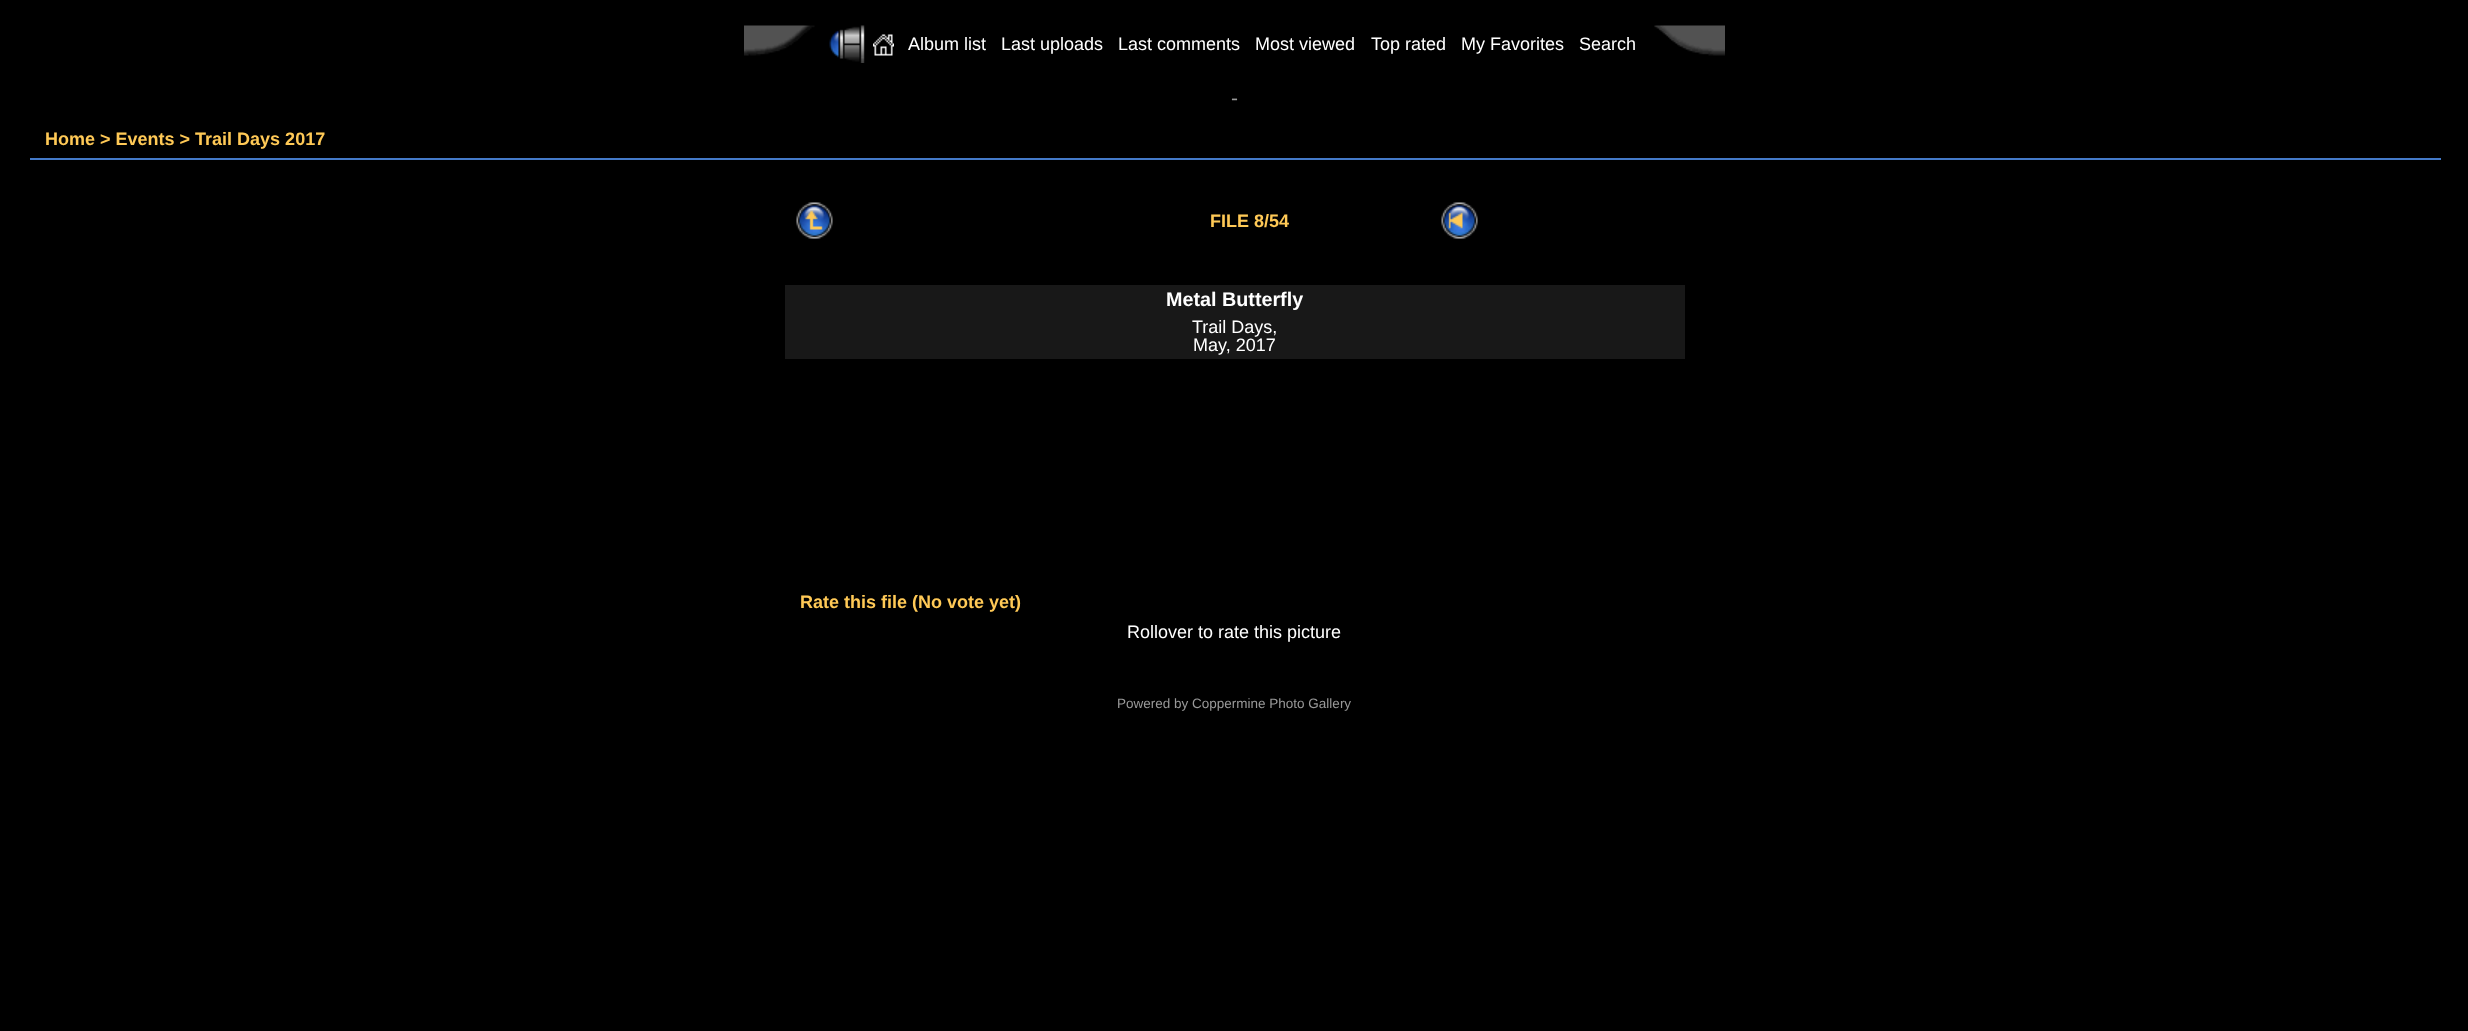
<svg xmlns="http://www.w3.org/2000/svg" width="2468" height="1031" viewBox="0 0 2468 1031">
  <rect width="100%" height="100%" fill="rgb(0,0,0)"/>
  <image x="744" y="25" width="71" height="31" href="pic1.png"/>
  <image x="829" y="25" width="36" height="38" href="pic2.png"/>
  <image x="873" y="34" width="21" height="22" href="pic3.png"/>
  <g font-family="Liberation Sans" font-size="18" fill="rgb(255,255,255)">
    <text x="908" y="50">Album list</text>
    <text x="1001" y="50">Last uploads</text>
    <text x="1118" y="50">Last comments</text>
    <text x="1255" y="50">Most viewed</text>
    <text x="1371" y="50">Top rated</text>
    <text x="1461" y="50">My Favorites</text>
    <text x="1579" y="50">Search</text>
  </g>
  <image x="1654" y="25" width="71" height="31" href="pic4.png"/>
  <text x="1231" y="105" font-family="Liberation Sans" font-size="21" fill="rgb(153,153,153)">-</text>
  <rect x="30" y="158" width="2411" height="2" fill="rgb(68,122,201)"/>
  <text x="45" y="145" font-family="Liberation Sans" font-size="18" font-weight="bold" fill="rgb(255,201,86)">Home &gt; Events &gt; Trail Days 2017</text>
  <image x="796" y="202" width="37" height="37" href="pic5.png"/>
  <text x="1210" y="227" font-family="Liberation Sans" font-size="18" font-weight="bold" fill="rgb(255,201,86)">FILE 8/54</text>
  <image x="1441" y="202" width="37" height="37" href="pic6.png"/>
  <rect x="785" y="285" width="900" height="74" fill="rgb(24,24,24)"/>
  <text x="1166" y="306" font-family="Liberation Sans" font-size="19.75" font-weight="bold" fill="rgb(255,255,255)">Metal Butterfly</text>
  <g font-family="Liberation Sans" font-size="18" fill="rgb(255,255,255)">
    <text x="1192" y="333">Trail Days,</text>
    <text x="1193" y="351">May, 2017</text>
  </g>
  <text x="800" y="608" font-family="Liberation Sans" font-size="18" font-weight="bold" fill="rgb(255,201,86)">Rate this file (No vote yet)</text>
  <text x="1127" y="638" font-family="Liberation Sans" font-size="18" fill="rgb(255,255,255)">Rollover to rate this picture</text>
  <text x="1117" y="708" font-family="Liberation Sans" font-size="13.5" fill="rgb(153,153,153)">Powered by Coppermine Photo Gallery</text>
</svg>
